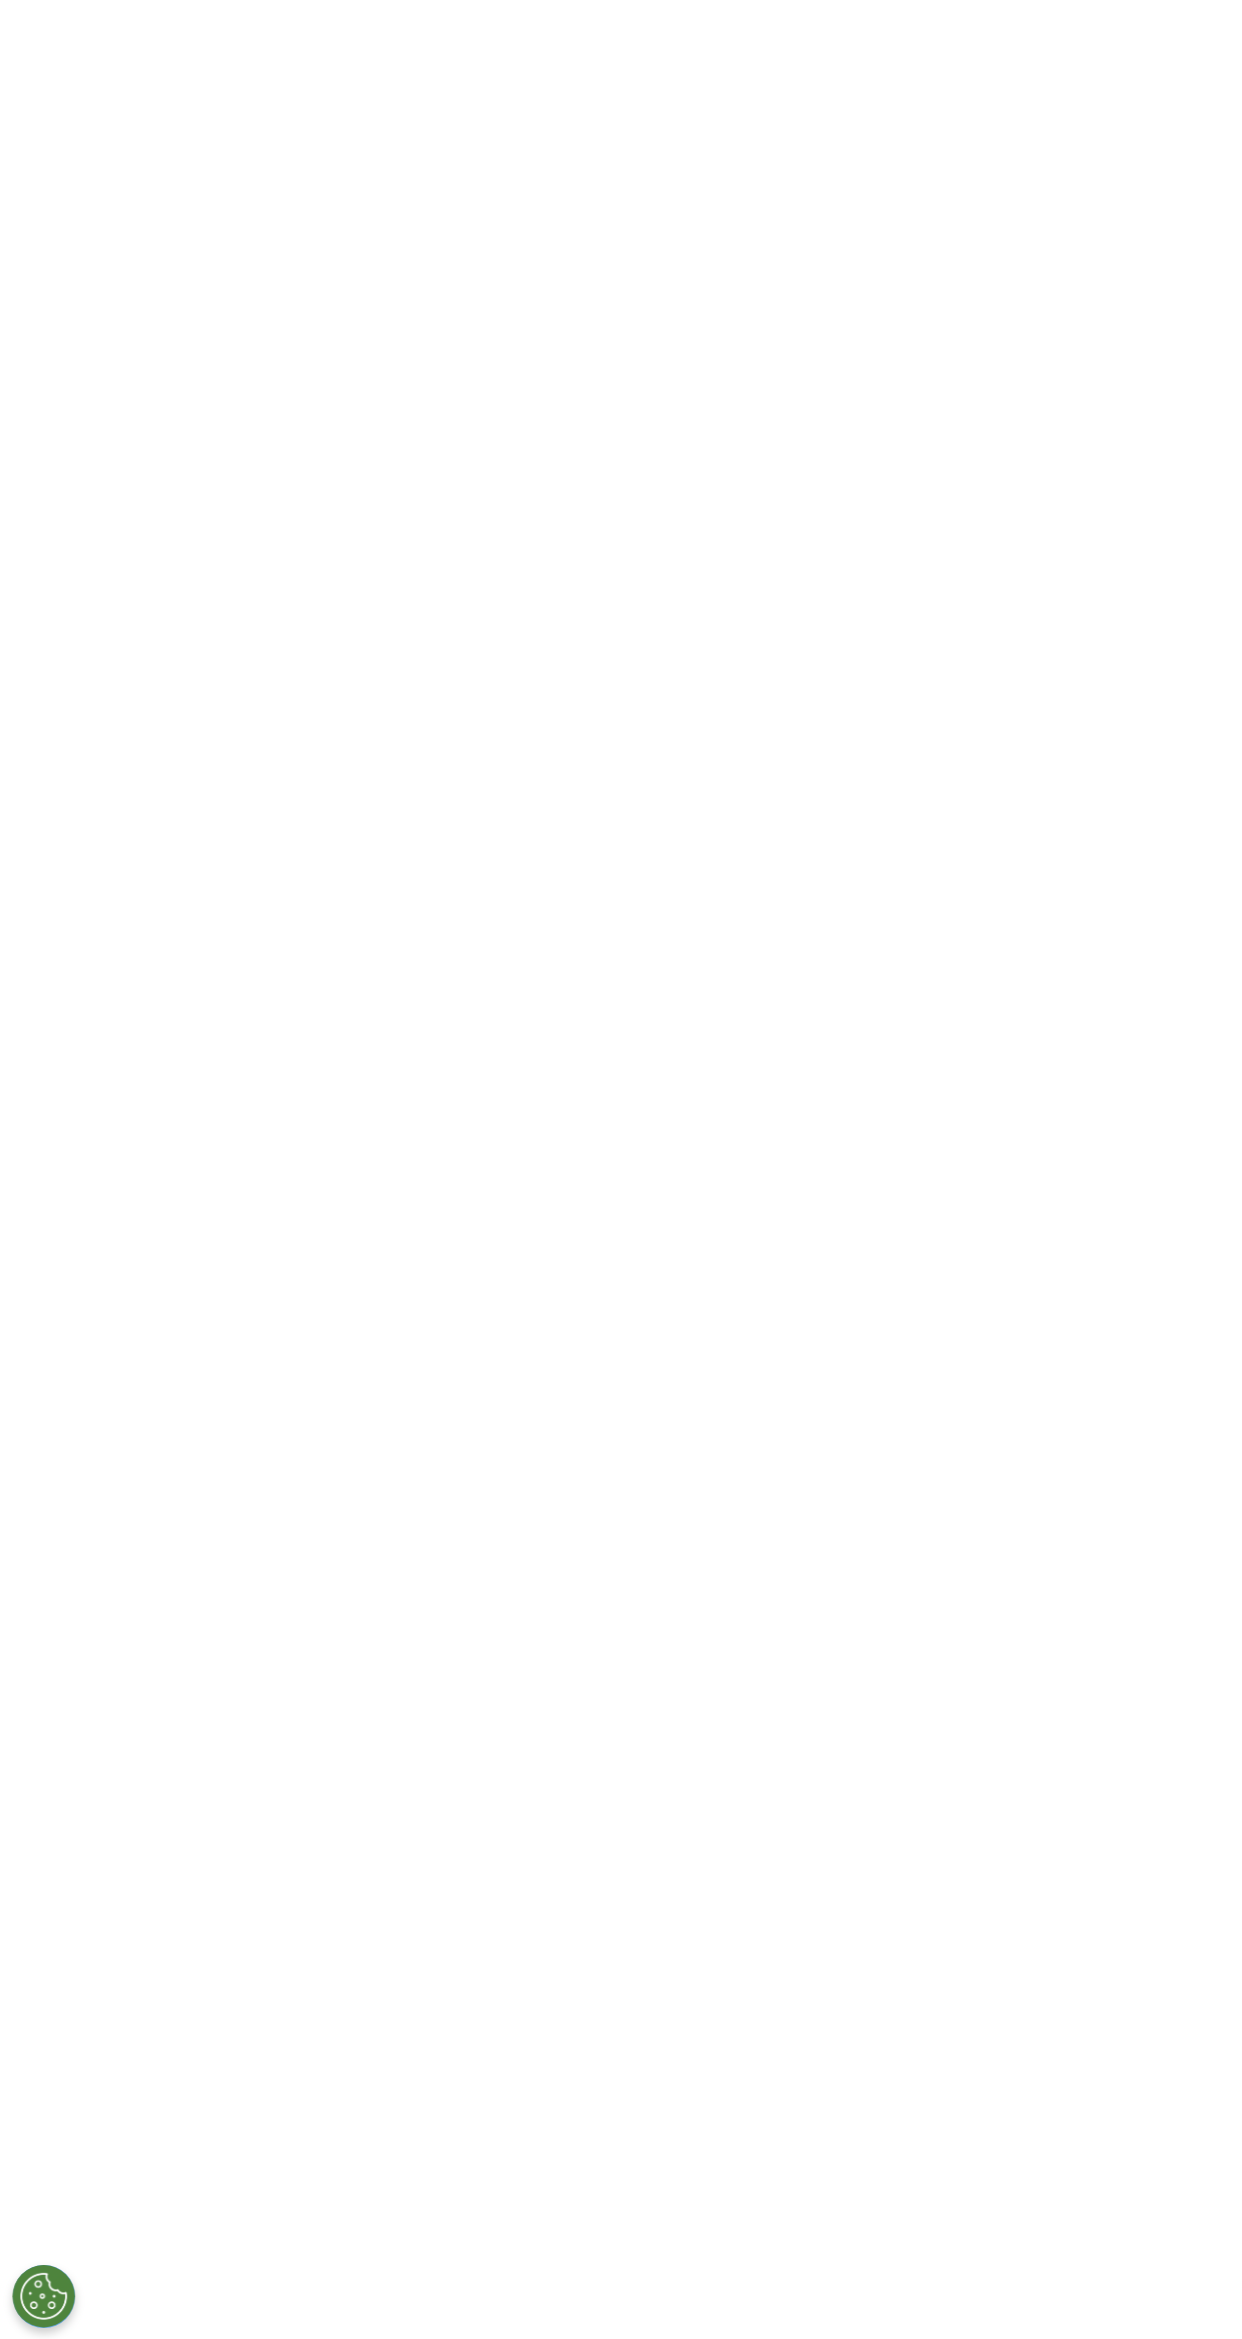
<svg xmlns="http://www.w3.org/2000/svg" width="1242" height="2339" viewBox="0 0 1242 2339">
  <rect width="100%" height="100%" fill="rgb(255,255,255)"/>
  <rect x="13" y="2270" width="62" height="63" rx="31" fill="rgba(0,0,0,0.2)" filter="blur(5px)"/>
  <rect x="13" y="2265" width="62" height="63" rx="31" fill="rgb(106,170,228)"/>
  <image x="12" y="2265" width="64" height="63" href="pic1.png"/>
</svg>
